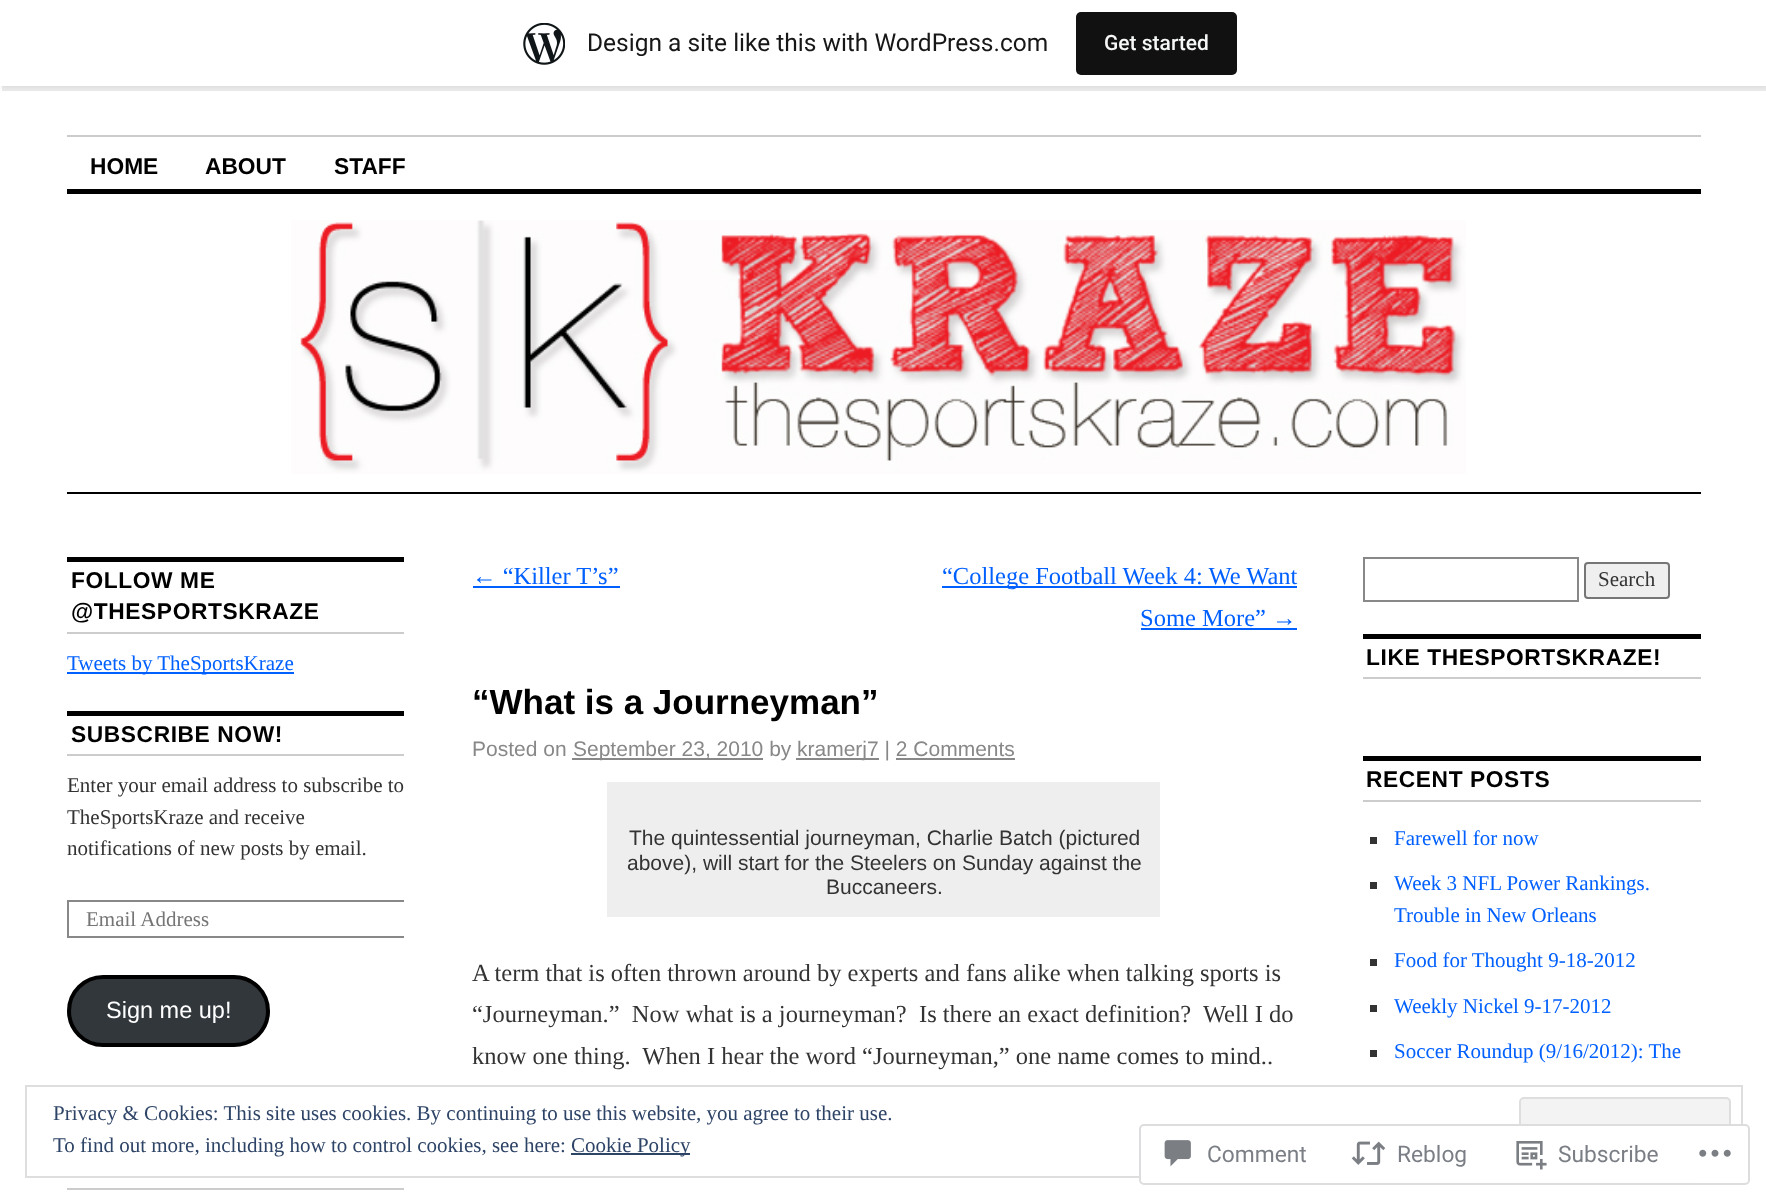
<svg xmlns="http://www.w3.org/2000/svg" width="1766" height="1202" viewBox="0 0 1766 1202">
  <defs>
    <clipPath id="clip1"><rect x="67" y="557" width="337" height="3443"/></clipPath>
  </defs>
  <rect width="100%" height="100%" fill="rgb(255,255,255)"/>
  <rect x="0" y="2" width="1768" height="86" fill="rgba(0,0,0,0.05)" filter="blur(2px)"/>
  <path d="M2 86V91H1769V5H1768V86Z" fill="rgba(0,0,0,0.08)"/>
  <rect x="0" y="0" width="1766" height="86" fill="rgb(255,255,255)"/>
  <image x="523" y="23" width="42" height="42" href="pic1.png"/>
  <text x="587" y="51" font-family="Roboto" font-size="24.5" fill="rgb(23,23,23)">Design a site like this with WordPress.com</text>
  <rect x="1076" y="12" width="161" height="63" rx="5" fill="rgb(17,17,17)"/>
  <text x="1104" y="50" font-family="Roboto" font-size="21" font-weight="500" fill="rgb(246,247,247)">Get started</text>
  <rect x="67" y="135" width="1634" height="2" fill="rgb(204,204,204)"/>
  <g font-family="Liberation Sans" font-size="22.75" font-weight="bold" fill="rgb(0,0,0)">
    <text x="90" y="174">HOME</text>
    <text x="205" y="174">ABOUT</text>
    <text x="334" y="174">STAFF</text>
  </g>
  <rect x="67" y="189" width="1634" height="5" fill="rgb(0,0,0)"/>
  <image x="291" y="220" width="1175" height="254" href="pic2.png"/>
  <rect x="67" y="492" width="1634" height="2" fill="rgb(0,0,0)"/>
  <rect x="67" y="557" width="337" height="5" fill="rgb(0,0,0)"/>
  <rect x="67" y="632" width="337" height="2" fill="rgb(204,204,204)"/>
  <g font-family="Liberation Sans" font-size="22.75" font-weight="bold" letter-spacing="0.6" fill="rgb(0,0,0)">
    <text>
      <tspan x="71" y="588">FOLLOW ME</tspan>
      <tspan x="71" y="619">@THESPORTSKRAZE</tspan>
    </text>
  </g>
  <rect x="67" y="672" width="227" height="2" fill="rgb(0,96,255)"/>
  <text x="67" y="670" font-family="Liberation Serif" font-size="21" fill="rgb(0,96,255)">Tweets by TheSportsKraze</text>
  <rect x="67" y="711" width="337" height="5" fill="rgb(0,0,0)"/>
  <rect x="67" y="754" width="337" height="2" fill="rgb(204,204,204)"/>
  <text x="71" y="742" font-family="Liberation Sans" font-size="22.75" font-weight="bold" letter-spacing="0.6" fill="rgb(0,0,0)">SUBSCRIBE NOW!</text>
  <g font-family="Liberation Serif" font-size="21" fill="rgb(51,51,51)">
    <text>
      <tspan x="67" y="792">Enter your email address to subscribe to</tspan>
      <tspan x="67" y="824">TheSportsKraze and receive</tspan>
      <tspan x="67" y="855">notifications of new posts by email.</tspan>
    </text>
  </g>
  <g clip-path="url(#clip1)">
    <rect x="68" y="901" width="358" height="36" fill="none" stroke="rgb(136,136,136)" stroke-width="2"/>
  </g>
  <text x="86" y="926" font-family="Liberation Serif" font-size="21" fill="rgb(117,117,117)">Email Address</text>
  <rect x="69" y="977" width="199" height="68" rx="34" fill="rgb(50,55,60)" stroke="rgb(0,0,0)" stroke-width="4"/>
  <text x="106" y="1018" font-family="Liberation Sans" font-size="23.5" fill="rgb(255,255,255)">Sign me up!</text>
  <rect x="67" y="1188" width="337" height="2" fill="rgb(204,204,204)"/>
  <text x="472" y="584" font-family="Liberation Serif" font-size="24.5" fill="rgb(0,96,255)">← “Killer T’s”</text>
  <rect x="473" y="586" width="147" height="2" fill="rgb(0,96,255)"/>
  <rect x="942" y="586" width="355" height="2" fill="rgb(0,96,255)"/>
  <g font-family="Liberation Serif" font-size="24.5" fill="rgb(0,96,255)">
    <text x="942" y="584">“College Football Week 4: We Want</text>
    <text x="1140" y="626">Some More” →</text>
  </g>
  <rect x="1141" y="628" width="156" height="2" fill="rgb(0,96,255)"/>
  <text x="472" y="714" font-family="Liberation Sans" font-size="35" font-weight="bold" fill="rgb(0,0,0)">“What is a Journeyman”</text>
  <text x="472" y="756" font-family="Liberation Sans" font-size="21" fill="rgb(136,136,136)">Posted on</text>
  <rect x="572" y="758" width="191" height="2" fill="rgb(136,136,136)"/>
  <text x="573" y="756" font-family="Liberation Sans" font-size="21" fill="rgb(136,136,136)">September 23, 2010 by</text>
  <rect x="796" y="758" width="83" height="2" fill="rgb(136,136,136)"/>
  <text x="797" y="756" font-family="Liberation Sans" font-size="21" fill="rgb(136,136,136)">kramerj7 | 2 Comments</text>
  <rect x="896" y="758" width="119" height="2" fill="rgb(136,136,136)"/>
  <rect x="607" y="782" width="553" height="135" fill="rgb(238,238,238)"/>
  <g font-family="Liberation Sans" font-size="21" fill="rgb(51,51,51)">
    <text x="629" y="845">The quintessential journeyman, Charlie Batch (pictured</text>
    <text x="627" y="870">above), will start for the Steelers on Sunday against the</text>
    <text x="826" y="894">Buccaneers.</text>
  </g>
  <g font-family="Liberation Serif" font-size="24.5" fill="rgb(51,51,51)">
    <text xml:space="preserve"><tspan x="472" y="981">A term that is often thrown around by experts and fans alike when talking sports is</tspan><tspan x="472" y="1022">“Journeyman.”  Now what is a journeyman?  Is there an exact definition?  Well I do</tspan><tspan x="472" y="1064">know one thing.  When I hear the word “Journeyman,” one name comes to mind..</tspan></text>
  </g>
  <rect x="1364" y="558" width="214" height="43" fill="none" stroke="rgb(136,136,136)" stroke-width="2"/>
  <rect x="1585" y="563" width="84" height="35" rx="3" fill="rgb(239,239,239)" stroke="rgb(118,118,118)" stroke-width="2"/>
  <text x="1598" y="586" font-family="Liberation Serif" font-size="21" fill="rgb(51,51,51)">Search</text>
  <rect x="1363" y="634" width="338" height="5" fill="rgb(0,0,0)"/>
  <rect x="1363" y="677" width="338" height="2" fill="rgb(204,204,204)"/>
  <text x="1366" y="665" font-family="Liberation Sans" font-size="22.75" font-weight="bold" letter-spacing="0.6" fill="rgb(0,0,0)">LIKE THESPORTSKRAZE!</text>
  <rect x="1363" y="756" width="338" height="5" fill="rgb(0,0,0)"/>
  <rect x="1363" y="800" width="338" height="2" fill="rgb(204,204,204)"/>
  <text x="1366" y="787" font-family="Liberation Sans" font-size="22.75" font-weight="bold" letter-spacing="0.6" fill="rgb(0,0,0)">RECENT POSTS</text>
  <rect x="1370" y="837" width="7" height="7" fill="rgb(51,51,51)"/>
  <text x="1394" y="845" font-family="Liberation Serif" font-size="21" fill="rgb(0,96,255)">Farewell for now</text>
  <rect x="1370" y="882" width="7" height="7" fill="rgb(51,51,51)"/>
  <g font-family="Liberation Serif" font-size="21" fill="rgb(0,96,255)">
    <text>
      <tspan x="1394" y="890">Week 3 NFL Power Rankings.</tspan>
      <tspan x="1394" y="922">Trouble in New Orleans</tspan>
    </text>
  </g>
  <rect x="1370" y="959" width="7" height="7" fill="rgb(51,51,51)"/>
  <text x="1394" y="967" font-family="Liberation Serif" font-size="21" fill="rgb(0,96,255)">Food for Thought 9-18-2012</text>
  <rect x="1370" y="1005" width="7" height="7" fill="rgb(51,51,51)"/>
  <text x="1394" y="1013" font-family="Liberation Serif" font-size="21" fill="rgb(0,96,255)">Weekly Nickel 9-17-2012</text>
  <rect x="1370" y="1050" width="7" height="7" fill="rgb(51,51,51)"/>
  <text x="1394" y="1058" font-family="Liberation Serif" font-size="21" fill="rgb(0,96,255)">Soccer Roundup (9/16/2012): The</text>
  <rect x="1363" y="1181" width="338" height="2" fill="rgb(204,204,204)"/>
  <rect x="26" y="1086" width="1716" height="91" fill="none" stroke="rgb(222,222,222)" stroke-width="2"/>
  <text x="53" y="1120" font-family="Liberation Serif" font-size="21" fill="rgb(46,68,103)">Privacy &amp; Cookies: This site uses cookies. By continuing to use this website, you agree to their use.</text>
  <rect x="1520" y="1098" width="210" height="67" rx="4" fill="rgb(243,243,243)" stroke="rgb(222,222,222)" stroke-width="2"/>
  <text x="53" y="1152" font-family="Liberation Serif" font-size="21" fill="rgb(46,68,103)">To find out more, including how to control cookies, see here:</text>
  <rect x="571" y="1153" width="119" height="2" fill="rgb(46,68,103)"/>
  <text x="571" y="1152" font-family="Liberation Serif" font-size="21" fill="rgb(46,68,103)">Cookie Policy</text>
  <rect x="1139" y="1124" width="611" height="61" rx="5" fill="rgba(255,255,255,0.98)"/>
  <rect x="1140" y="1125" width="609" height="59" rx="4" fill="none" stroke="rgba(220,220,222,0.98)" stroke-width="2"/>
  <image x="1164" y="1140" width="27" height="27" href="pic3.png"/>
  <text x="1207" y="1162" font-family="Roboto" font-size="22.75" fill="rgb(123,127,133)">Comment</text>
  <image x="1351" y="1141" width="35" height="24" href="pic4.png"/>
  <text x="1397" y="1162" font-family="Roboto" font-size="22.75" fill="rgb(123,127,133)">Reblog</text>
  <image x="1516" y="1141" width="31" height="29" href="pic5.png"/>
  <text x="1558" y="1162" font-family="Roboto" font-size="22.75" fill="rgb(123,127,133)">Subscribe</text>
  <image x="1699" y="1149" width="32" height="8" href="pic6.png"/>
</svg>
